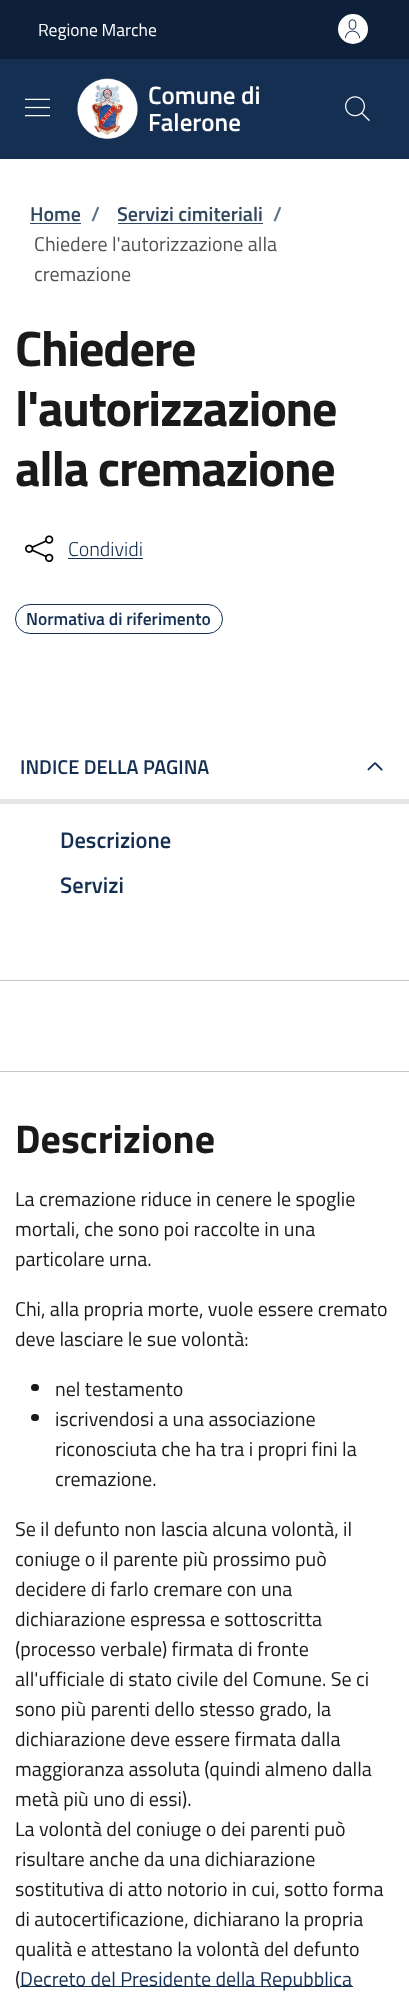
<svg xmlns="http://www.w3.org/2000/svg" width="409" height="1997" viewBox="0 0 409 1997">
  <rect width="100%" height="100%" fill="rgb(255,255,255)"/>
  <rect x="0" y="0" width="409" height="59" fill="rgb(14,32,57)"/>
  <text x="38" y="36" font-family="Titillium Web" font-size="17.5" fill="rgb(255,255,255)">Regione Marche</text>
  <circle cx="353" cy="29" r="15" fill="rgb(255,255,255)"/>
  <image x="345" y="19" width="15" height="20" href="pic1.png"/>
  <rect x="0" y="59" width="409" height="100" fill="rgb(21,47,82)"/>
  <image x="25" y="98" width="25" height="19" href="pic2.png"/>
  <image x="77" y="78" width="61" height="61" href="pic3.png"/>
  <g font-family="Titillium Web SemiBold" font-size="25" font-weight="600" fill="rgb(255,255,255)">
    <text>
      <tspan x="148" y="104">Comune di</tspan>
      <tspan x="148" y="131">Falerone</tspan>
    </text>
  </g>
  <image x="345" y="96" width="25" height="25" href="pic4.png"/>
  <text x="30" y="221" font-family="Titillium Web SemiBold" font-size="20" font-weight="600" fill="rgb(48,71,95)">Home</text>
  <rect x="30" y="223" width="51" height="1" fill="rgb(48,71,95)"/>
  <text x="91" y="221" font-family="Titillium Web SemiBold" font-size="20" font-weight="600" fill="rgb(93,112,131)">/</text>
  <text x="117" y="221" font-family="Titillium Web SemiBold" font-size="20" font-weight="600" fill="rgb(48,71,95)">Servizi cimiteriali</text>
  <rect x="118" y="223" width="145" height="1" fill="rgb(48,71,95)"/>
  <text x="273" y="221" font-family="Titillium Web SemiBold" font-size="20" font-weight="600" fill="rgb(93,112,131)">/</text>
  <g font-family="Titillium Web" font-size="20" fill="rgb(82,82,82)">
    <text>
      <tspan x="34" y="251">Chiedere l'autorizzazione alla</tspan>
      <tspan x="34" y="281">cremazione</tspan>
    </text>
  </g>
  <g font-family="Titillium Web" font-size="50" font-weight="bold" letter-spacing="-1.25" fill="rgb(26,26,26)">
    <text>
      <tspan x="15" y="366">Chiedere</tspan>
      <tspan x="15" y="426">l'autorizzazione</tspan>
      <tspan x="15" y="486">alla cremazione</tspan>
    </text>
  </g>
  <image x="25" y="535" width="29" height="28" href="pic5.png"/>
  <text x="68" y="556" font-family="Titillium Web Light" font-size="20" font-weight="300" fill="rgb(21,47,82)">Condividi</text>
  <rect x="68" y="558" width="75" height="1" fill="rgb(21,47,82)"/>
  <rect x="15.5" y="604.5" width="207" height="29" rx="14.5" fill="none" stroke="rgb(21,47,82)"/>
  <text x="26" y="625" font-family="Titillium Web SemiBold" font-size="17.5" font-weight="600" fill="rgb(21,47,82)">Normativa di riferimento</text>
  <rect x="0" y="980" width="409" height="1" fill="rgb(197,199,201)"/>
  <text x="20" y="774" font-family="Titillium Web SemiBold" font-size="20" font-weight="600" fill="rgb(21,47,82)">INDICE DELLA PAGINA</text>
  <image x="367" y="762" width="16" height="9" href="pic6.png"/>
  <rect x="0" y="799" width="409" height="5" fill="rgb(230,230,230)"/>
  <g font-family="Titillium Web SemiBold" font-size="22.5" font-weight="600" fill="rgb(21,47,82)">
    <text x="60" y="848">Descrizione</text>
    <text x="60" y="893">Servizi</text>
  </g>
  <rect x="0" y="1071" width="409" height="1" fill="rgb(197,199,201)"/>
  <text x="15" y="1153" font-family="Titillium Web" font-size="40" font-weight="bold" fill="rgb(26,26,26)">Descrizione</text>
  <g font-family="Titillium Web" font-size="20" fill="rgb(26,26,26)">
    <text>
      <tspan x="15" y="1206">La cremazione riduce in cenere le spoglie</tspan>
      <tspan x="15" y="1236">mortali, che sono poi raccolte in una</tspan>
      <tspan x="15" y="1266">particolare urna.</tspan>
    </text>
    <text>
      <tspan x="15" y="1316">Chi, alla propria morte, vuole essere cremato</tspan>
      <tspan x="15" y="1346">deve lasciare le sue volontà:</tspan>
    </text>
  </g>
  <rect x="31" y="1384" width="8" height="7" rx="3.5" fill="rgb(26,26,26)"/>
  <text x="55" y="1396" font-family="Titillium Web" font-size="20" fill="rgb(26,26,26)">nel testamento</text>
  <rect x="31" y="1414" width="8" height="7" rx="3.5" fill="rgb(26,26,26)"/>
  <g font-family="Titillium Web" font-size="20" fill="rgb(26,26,26)">
    <text>
      <tspan x="55" y="1426">iscrivendosi a una associazione</tspan>
      <tspan x="55" y="1456">riconosciuta che ha tra i propri fini la</tspan>
      <tspan x="55" y="1486">cremazione.</tspan>
    </text>
    <text>
      <tspan x="15" y="1536">Se il defunto non lascia alcuna volontà, il</tspan>
      <tspan x="15" y="1566">coniuge o il parente più prossimo può</tspan>
      <tspan x="15" y="1596">decidere di farlo cremare con una</tspan>
      <tspan x="15" y="1626">dichiarazione espressa e sottoscritta</tspan>
      <tspan x="15" y="1656">(processo verbale) firmata di fronte</tspan>
      <tspan x="15" y="1686">all'ufficiale di stato civile del Comune. Se ci</tspan>
      <tspan x="15" y="1716">sono più parenti dello stesso grado, la</tspan>
      <tspan x="15" y="1746">dichiarazione deve essere firmata dalla</tspan>
      <tspan x="15" y="1776">maggioranza assoluta (quindi almeno dalla</tspan>
      <tspan x="15" y="1806">metà più uno di essi).</tspan>
      <tspan x="15" y="1836">La volontà del coniuge o dei parenti può</tspan>
      <tspan x="15" y="1866">risultare anche da una dichiarazione</tspan>
      <tspan x="15" y="1896">sostitutiva di atto notorio in cui, sotto forma</tspan>
      <tspan x="15" y="1926">di autocertificazione, dichiarano la propria</tspan>
      <tspan x="15" y="1956">qualità e attestano la volontà del defunto</tspan>
      <tspan x="15" y="1986">(</tspan>
    </text>
  </g>
  <rect x="20" y="1986" width="333" height="1" fill="rgb(21,47,82)"/>
  <text x="20" y="1986" font-family="Titillium Web" font-size="20" fill="rgb(21,47,82)">Decreto del Presidente della Repubblica</text>
</svg>
